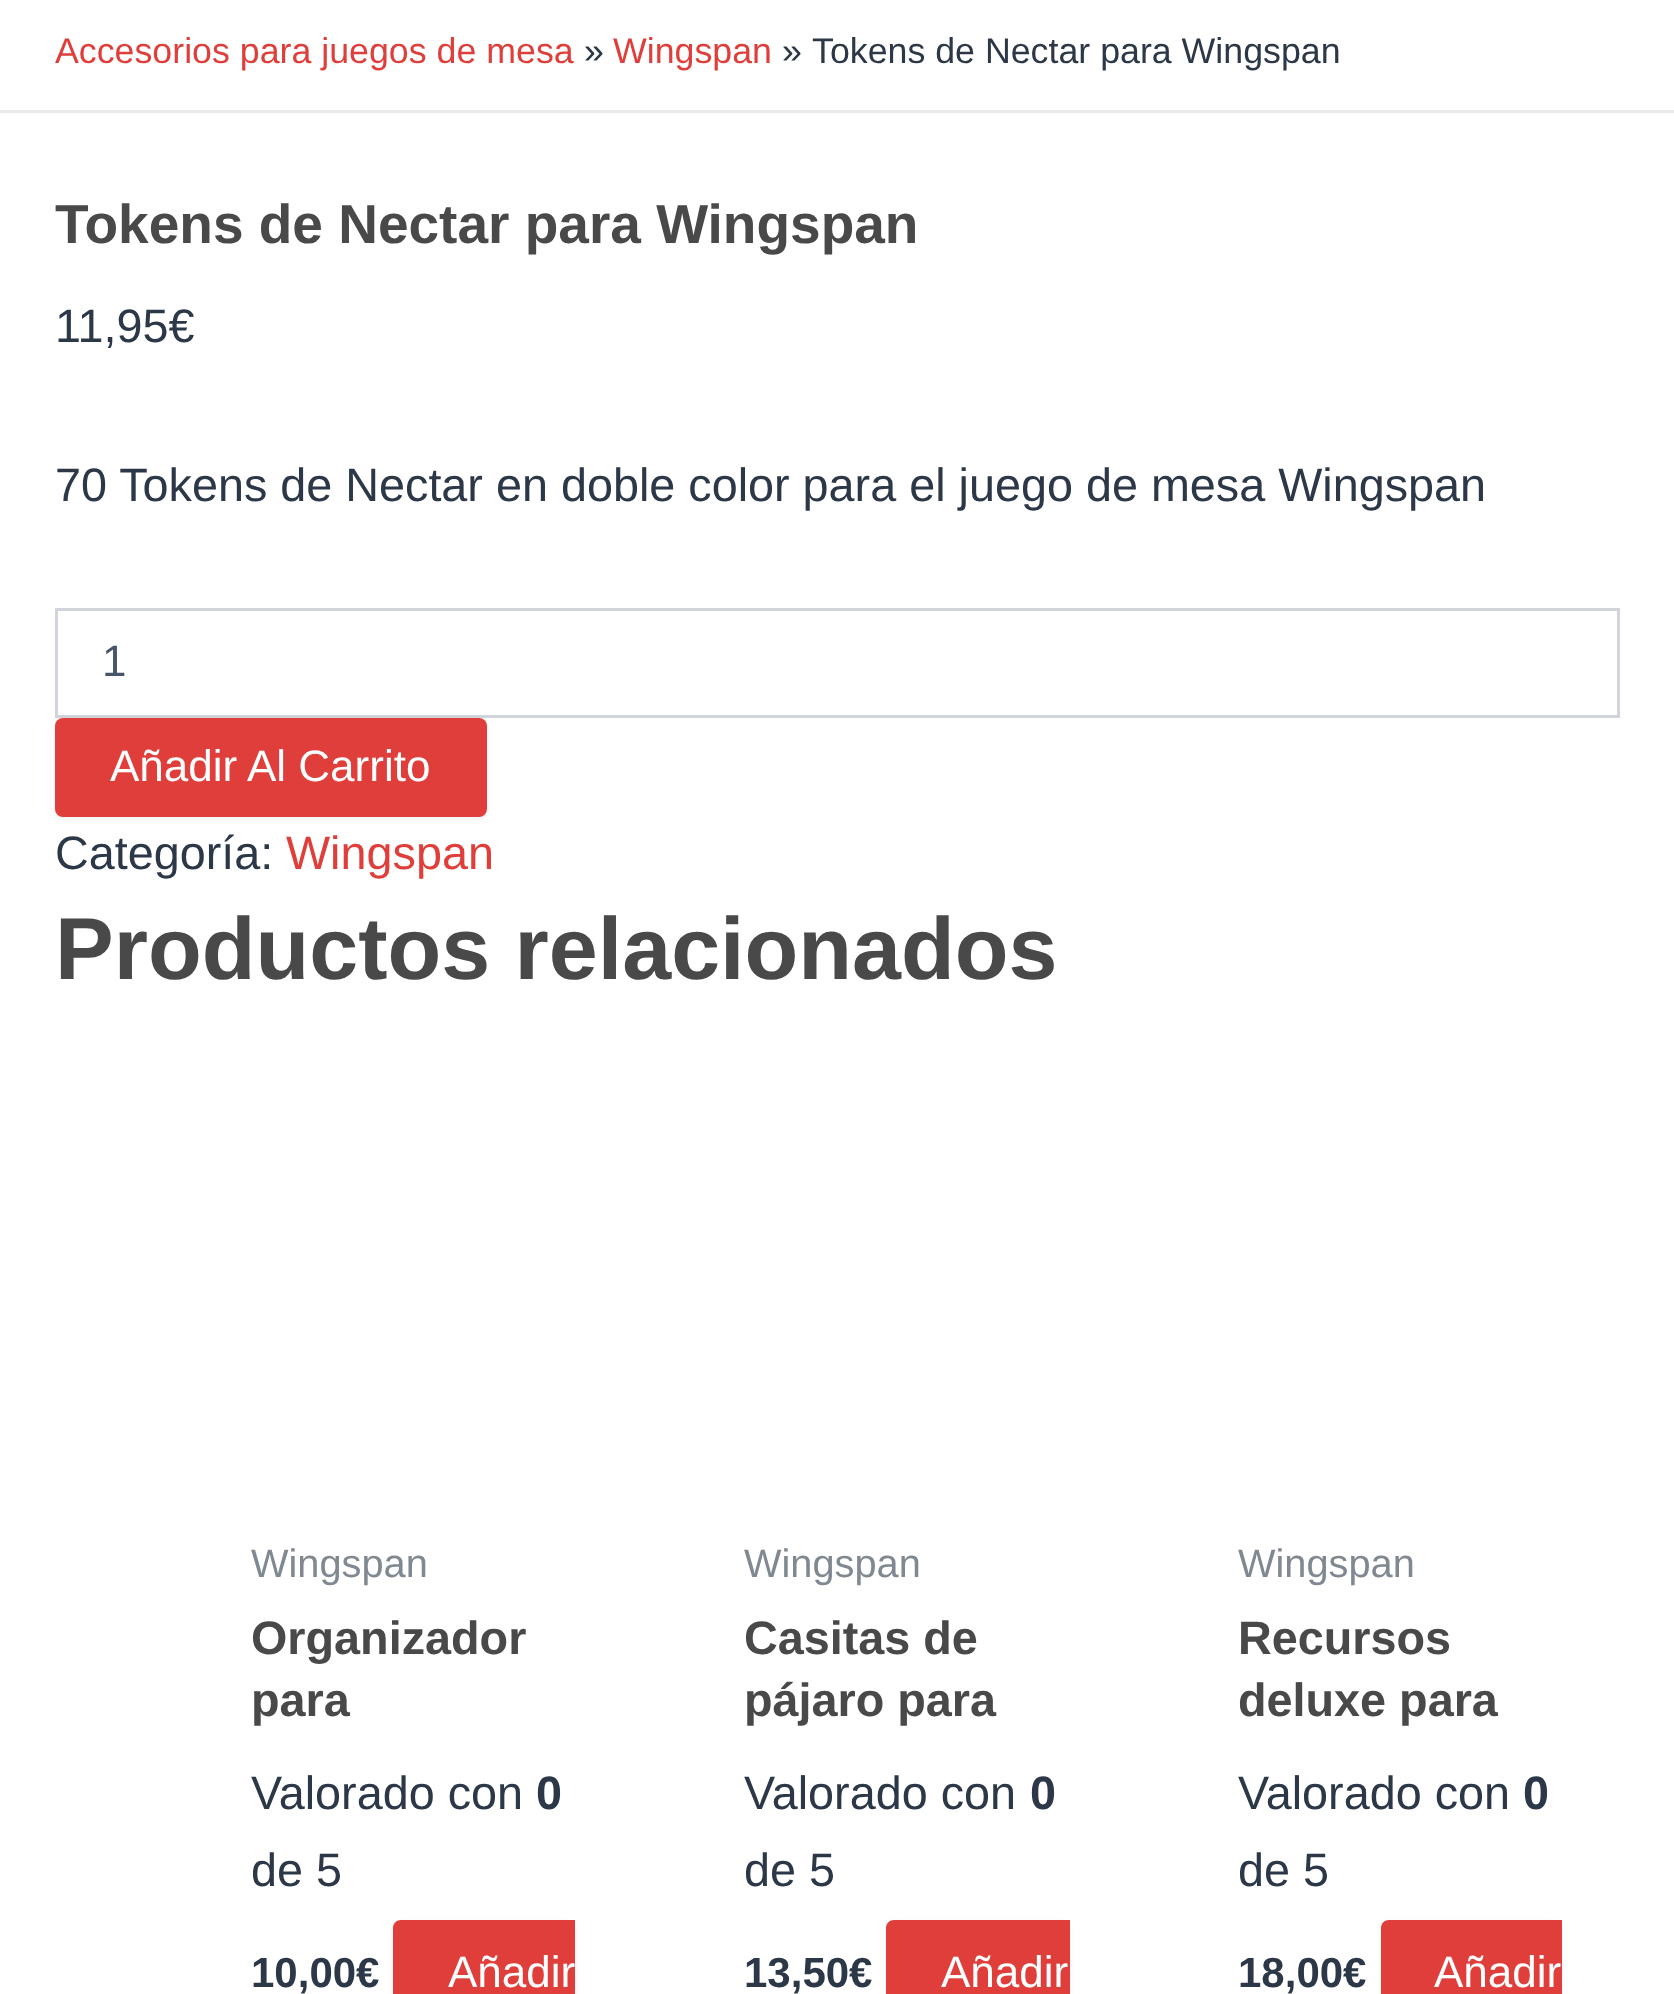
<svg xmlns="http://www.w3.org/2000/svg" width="1674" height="1994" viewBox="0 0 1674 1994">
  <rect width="100%" height="100%" fill="rgb(255,255,255)"/>
  <rect x="0" y="110" width="1674" height="3" fill="rgb(234,234,234)"/>
  <text x="55" y="63" font-family="Liberation Sans" font-size="35.75" fill="rgb(223,62,58)">Accesorios para juegos de mesa</text>
  <text x="584" y="63" font-family="Liberation Sans" font-size="35.75" fill="rgb(44,56,71)">»</text>
  <text x="613" y="63" font-family="Liberation Sans" font-size="35.75" fill="rgb(223,62,58)">Wingspan</text>
  <g font-family="Liberation Sans" font-size="35.75" fill="rgb(44,56,71)">
    <text x="782" y="63">»</text>
    <text x="812" y="63">Tokens de Nectar para Wingspan</text>
  </g>
  <text x="55" y="243" font-family="Liberation Sans" font-size="55" font-weight="bold" fill="rgb(73,73,73)">Tokens de Nectar para Wingspan</text>
  <g font-family="Liberation Sans" font-size="46.75" fill="rgb(44,56,71)">
    <text x="55" y="342">11,95€</text>
    <text x="55" y="501">70 Tokens de Nectar en doble color para el juego de mesa Wingspan</text>
  </g>
  <rect x="56.5" y="609.5" width="1562" height="107" fill="none" stroke="rgb(209,213,219)" stroke-width="3"/>
  <text x="102" y="676" font-family="Liberation Sans" font-size="44" fill="rgb(71,85,105)">1</text>
  <rect x="55" y="721" width="432" height="99" rx="8" fill="rgba(0,0,0,0.05)" filter="blur(3px)"/>
  <rect x="55" y="718" width="432" height="99" rx="8" fill="rgb(223,62,58)"/>
  <text x="110" y="781" font-family="Liberation Sans" font-size="44" fill="rgb(255,255,255)">Añadir Al Carrito</text>
  <text x="55" y="869" font-family="Liberation Sans" font-size="46.75" fill="rgb(44,56,71)">Categoría:</text>
  <text x="286" y="869" font-family="Liberation Sans" font-size="46.75" fill="rgb(223,62,58)">Wingspan</text>
  <text x="55" y="979" font-family="Liberation Sans" font-size="88" font-weight="bold" fill="rgb(73,73,73)">Productos relacionados</text>
  <text x="251" y="1577" font-family="Liberation Sans" font-size="39.75" fill="rgb(128,136,145)">Wingspan</text>
  <g font-family="Liberation Sans" font-size="46.75" font-weight="bold" fill="rgb(73,73,73)">
    <text>
      <tspan x="251" y="1654">Organizador</tspan>
      <tspan x="251" y="1716">para</tspan>
    </text>
  </g>
  <text x="251" y="1809" font-family="Liberation Sans" font-size="46.75" fill="rgb(44,56,71)">Valorado con</text>
  <text x="536" y="1809" font-family="Liberation Sans" font-size="46.75" font-weight="bold" fill="rgb(44,56,71)">0</text>
  <text x="251" y="1886" font-family="Liberation Sans" font-size="46.75" fill="rgb(44,56,71)">de 5</text>
  <text x="251" y="1987" font-family="Liberation Sans" font-size="42" font-weight="bold" fill="rgb(44,56,71)">10,00€</text>
  <rect x="393" y="1922" width="182" height="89" rx="8" fill="rgba(0,0,0,0.05)" filter="blur(3px)"/>
  <path d="M401 1920H575V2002H401C396.5 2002 393 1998.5 393 1994V1928C393 1923.5 396.5 1920 401 1920Z" fill="rgb(223,62,58)"/>
  <text x="448" y="1987" font-family="Liberation Sans" font-size="44" fill="rgb(255,255,255)">Añadir</text>
  <text x="744" y="1577" font-family="Liberation Sans" font-size="39.75" fill="rgb(128,136,145)">Wingspan</text>
  <g font-family="Liberation Sans" font-size="46.75" font-weight="bold" fill="rgb(73,73,73)">
    <text>
      <tspan x="744" y="1654">Casitas de</tspan>
      <tspan x="744" y="1716">pájaro para</tspan>
    </text>
  </g>
  <text x="744" y="1809" font-family="Liberation Sans" font-size="46.75" fill="rgb(44,56,71)">Valorado con</text>
  <text x="1030" y="1809" font-family="Liberation Sans" font-size="46.75" font-weight="bold" fill="rgb(44,56,71)">0</text>
  <text x="744" y="1886" font-family="Liberation Sans" font-size="46.75" fill="rgb(44,56,71)">de 5</text>
  <text x="744" y="1987" font-family="Liberation Sans" font-size="42" font-weight="bold" fill="rgb(44,56,71)">13,50€</text>
  <rect x="886" y="1922" width="184" height="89" rx="8" fill="rgba(0,0,0,0.05)" filter="blur(3px)"/>
  <path d="M894 1920H1070V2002H894C889.5 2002 886 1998.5 886 1994V1928C886 1923.5 889.5 1920 894 1920Z" fill="rgb(223,62,58)"/>
  <text x="941" y="1987" font-family="Liberation Sans" font-size="44" fill="rgb(255,255,255)">Añadir</text>
  <text x="1238" y="1577" font-family="Liberation Sans" font-size="39.75" fill="rgb(128,136,145)">Wingspan</text>
  <g font-family="Liberation Sans" font-size="46.75" font-weight="bold" fill="rgb(73,73,73)">
    <text>
      <tspan x="1238" y="1654">Recursos</tspan>
      <tspan x="1238" y="1716">deluxe para</tspan>
    </text>
  </g>
  <text x="1238" y="1809" font-family="Liberation Sans" font-size="46.75" fill="rgb(44,56,71)">Valorado con</text>
  <text x="1523" y="1809" font-family="Liberation Sans" font-size="46.75" font-weight="bold" fill="rgb(44,56,71)">0</text>
  <text x="1238" y="1886" font-family="Liberation Sans" font-size="46.75" fill="rgb(44,56,71)">de 5</text>
  <text x="1238" y="1987" font-family="Liberation Sans" font-size="42" font-weight="bold" fill="rgb(44,56,71)">18,00€</text>
  <rect x="1381" y="1922" width="181" height="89" rx="8" fill="rgba(0,0,0,0.05)" filter="blur(3px)"/>
  <path d="M1389 1920H1562V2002H1389C1384.5 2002 1381 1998.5 1381 1994V1928C1381 1923.5 1384.5 1920 1389 1920Z" fill="rgb(223,62,58)"/>
  <text x="1434" y="1987" font-family="Liberation Sans" font-size="44" fill="rgb(255,255,255)">Añadir</text>
</svg>
